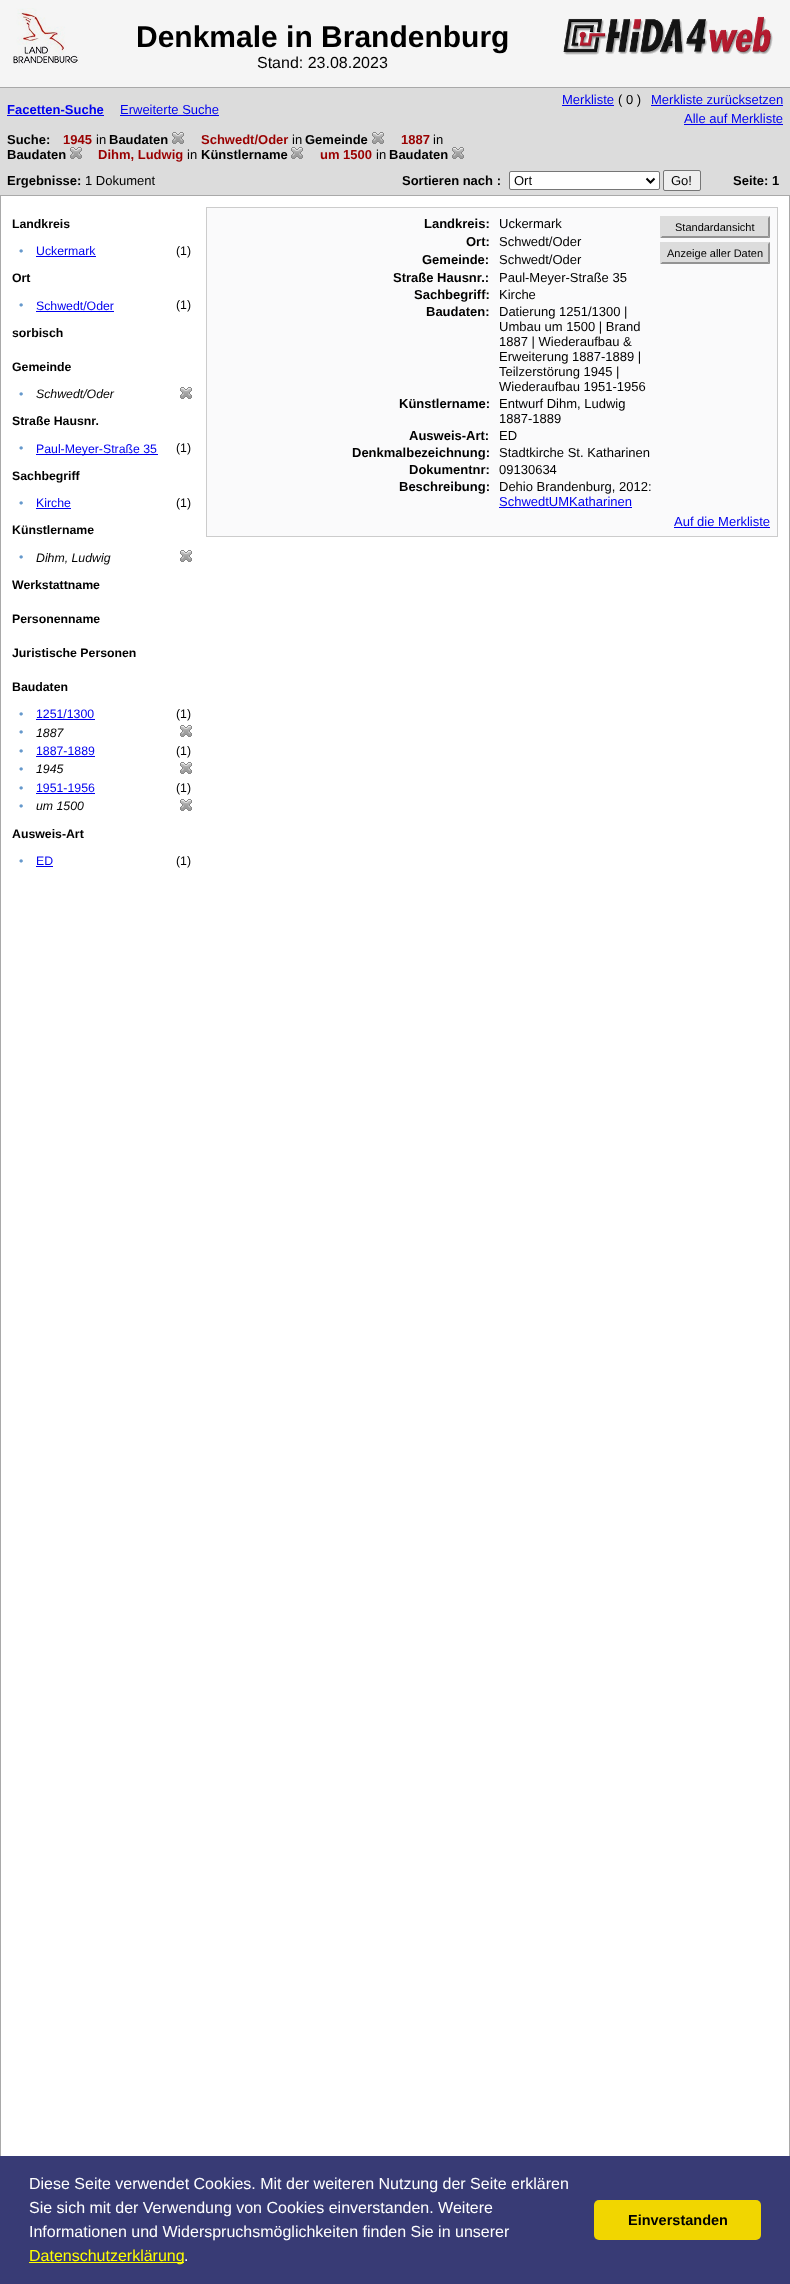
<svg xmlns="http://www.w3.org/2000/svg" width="790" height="2284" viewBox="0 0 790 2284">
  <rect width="100%" height="100%" fill="rgb(255,255,255)"/>
  <rect x="0" y="0" width="790" height="87" fill="rgb(245,245,245)"/>
  <image x="13" y="8" width="66" height="56" href="pic1.png"/>
  <text x="136" y="47" font-family="Liberation Sans" font-size="30" font-weight="bold" fill="rgb(0,0,0)">Denkmale in Brandenburg</text>
  <text x="257" y="68" font-family="Liberation Sans" font-size="16" fill="rgb(0,0,0)">Stand: 23.08.2023</text>
  <image x="563" y="16" width="210" height="39" href="pic2.png"/>
  <rect x="0" y="88" width="790" height="107" fill="rgb(220,220,220)"/>
  <rect x="0" y="87" width="790" height="1" fill="rgb(169,169,169)"/>
  <text x="562" y="104" font-family="Liberation Sans" font-size="13" fill="rgb(0,0,238)">Merkliste</text>
  <rect x="562" y="105" width="52" height="1" fill="rgb(0,0,238)"/>
  <text x="618" y="104" font-family="Liberation Sans" font-size="13" fill="rgb(0,0,0)">( 0 )</text>
  <text x="651" y="104" font-family="Liberation Sans" font-size="13" fill="rgb(0,0,238)">Merkliste zurücksetzen</text>
  <rect x="651" y="105" width="132" height="1" fill="rgb(0,0,238)"/>
  <text x="7" y="114" font-family="Liberation Sans" font-size="13" font-weight="bold" fill="rgb(0,0,238)">Facetten-Suche</text>
  <rect x="7" y="115" width="97" height="1" fill="rgb(0,0,238)"/>
  <text x="120" y="114" font-family="Liberation Sans" font-size="13" fill="rgb(0,0,238)">Erweiterte Suche</text>
  <rect x="120" y="115" width="99" height="1" fill="rgb(0,0,238)"/>
  <text x="684" y="123" font-family="Liberation Sans" font-size="13" fill="rgb(0,0,238)">Alle auf Merkliste</text>
  <rect x="684" y="124" width="99" height="1" fill="rgb(0,0,238)"/>
  <text x="7" y="144" font-family="Liberation Sans" font-size="13" font-weight="bold" fill="rgb(0,0,0)">Suche:</text>
  <text x="63" y="144" font-family="Liberation Sans" font-size="13" font-weight="bold" fill="rgb(153,0,0)">1945</text>
  <text x="96" y="144" font-family="Liberation Sans" font-size="13" fill="rgb(0,0,0)">in</text>
  <text x="109" y="144" font-family="Liberation Sans" font-size="13" font-weight="bold" fill="rgb(0,0,0)">Baudaten</text>
  <image x="172" y="132" width="12" height="12" href="pic3.png"/>
  <text x="201" y="144" font-family="Liberation Sans" font-size="13" font-weight="bold" fill="rgb(153,0,0)">Schwedt/Oder</text>
  <text x="292" y="144" font-family="Liberation Sans" font-size="13" fill="rgb(0,0,0)">in</text>
  <text x="305" y="144" font-family="Liberation Sans" font-size="13" font-weight="bold" fill="rgb(0,0,0)">Gemeinde</text>
  <image x="372" y="132" width="12" height="12" href="pic3.png"/>
  <text x="401" y="144" font-family="Liberation Sans" font-size="13" font-weight="bold" fill="rgb(153,0,0)">1887</text>
  <text x="433" y="144" font-family="Liberation Sans" font-size="13" fill="rgb(0,0,0)">in</text>
  <text x="7" y="159" font-family="Liberation Sans" font-size="13" font-weight="bold" fill="rgb(0,0,0)">Baudaten</text>
  <image x="70" y="147" width="12" height="12" href="pic3.png"/>
  <text x="98" y="159" font-family="Liberation Sans" font-size="13" font-weight="bold" fill="rgb(153,0,0)">Dihm, Ludwig</text>
  <text x="187" y="159" font-family="Liberation Sans" font-size="13" fill="rgb(0,0,0)">in</text>
  <text x="201" y="159" font-family="Liberation Sans" font-size="13" font-weight="bold" fill="rgb(0,0,0)">Künstlername</text>
  <image x="291" y="147" width="12" height="12" href="pic3.png"/>
  <text x="320" y="159" font-family="Liberation Sans" font-size="13" font-weight="bold" fill="rgb(153,0,0)">um 1500</text>
  <text x="376" y="159" font-family="Liberation Sans" font-size="13" fill="rgb(0,0,0)">in</text>
  <text x="389" y="159" font-family="Liberation Sans" font-size="13" font-weight="bold" fill="rgb(0,0,0)">Baudaten</text>
  <image x="452" y="147" width="12" height="12" href="pic3.png"/>
  <text x="7" y="185" font-family="Liberation Sans" font-size="13" font-weight="bold" fill="rgb(0,0,0)">Ergebnisse:</text>
  <text x="85" y="185" font-family="Liberation Sans" font-size="13" fill="rgb(0,0,0)">1 Dokument</text>
  <text x="402" y="185" font-family="Liberation Sans" font-size="13" font-weight="bold" fill="rgb(0,0,0)">Sortieren nach :</text>
  <rect x="509.5" y="171.5" width="150" height="18" rx="1.5" fill="rgb(255,255,255)" stroke="rgb(118,118,118)"/>
  <path d="M646.5 178.5L650.5 182.5L654.5 178.5" fill="none" stroke="rgb(0,0,0)" stroke-width="2"/>
  <text x="514" y="185" font-family="Liberation Sans" font-size="13" fill="rgb(0,0,0)">Ort</text>
  <rect x="663.5" y="170.5" width="37" height="20" rx="1.5" fill="rgb(239,239,239)" stroke="rgb(118,118,118)"/>
  <text x="671" y="185" font-family="Liberation Sans" font-size="13" fill="rgb(0,0,0)">Go!</text>
  <text x="733" y="185" font-family="Liberation Sans" font-size="13" font-weight="bold" fill="rgb(0,0,0)">Seite: 1</text>
  <rect x="0.5" y="195.5" width="789" height="2031" fill="none" stroke="rgb(169,169,169)"/>
  <text x="12" y="228" font-family="Liberation Sans" font-size="12.3" font-weight="bold" fill="rgb(0,0,0)">Landkreis</text>
  <text x="19" y="255" font-family="Liberation Sans" font-size="12.3" fill="rgb(102,153,204)">•</text>
  <text x="36" y="255" font-family="Liberation Sans" font-size="12.3" fill="rgb(0,0,238)">Uckermark</text>
  <rect x="36" y="256" width="60" height="1" fill="rgb(0,0,238)"/>
  <text x="176" y="255" font-family="Liberation Sans" font-size="12.3" fill="rgb(0,0,0)">(1)</text>
  <text x="12" y="282" font-family="Liberation Sans" font-size="12.3" font-weight="bold" fill="rgb(0,0,0)">Ort</text>
  <text x="19" y="309" font-family="Liberation Sans" font-size="12.3" fill="rgb(102,153,204)">•</text>
  <text x="36" y="310" font-family="Liberation Sans" font-size="12.3" fill="rgb(0,0,238)">Schwedt/Oder</text>
  <rect x="36" y="311" width="78" height="1" fill="rgb(0,0,238)"/>
  <text x="176" y="309" font-family="Liberation Sans" font-size="12.3" fill="rgb(0,0,0)">(1)</text>
  <g font-family="Liberation Sans" font-size="12.3" font-weight="bold" fill="rgb(0,0,0)">
    <text x="12" y="337">sorbisch</text>
    <text x="12" y="371">Gemeinde</text>
  </g>
  <text x="19" y="398" font-family="Liberation Sans" font-size="12.3" fill="rgb(102,153,204)">•</text>
  <text x="36" y="398" font-family="Liberation Sans" font-size="12.3" font-style="italic" fill="rgb(0,0,0)">Schwedt/Oder</text>
  <image x="180" y="387" width="12" height="12" href="pic4.png"/>
  <text x="12" y="425" font-family="Liberation Sans" font-size="12.3" font-weight="bold" fill="rgb(0,0,0)">Straße Hausnr.</text>
  <text x="19" y="452" font-family="Liberation Sans" font-size="12.3" fill="rgb(102,153,204)">•</text>
  <rect x="36" y="454" width="122" height="1" fill="rgb(0,0,238)"/>
  <text x="36" y="453" font-family="Liberation Sans" font-size="12.3" fill="rgb(0,0,238)">Paul-Meyer-Straße 35</text>
  <text x="176" y="452" font-family="Liberation Sans" font-size="12.3" fill="rgb(0,0,0)">(1)</text>
  <text x="12" y="480" font-family="Liberation Sans" font-size="12.3" font-weight="bold" fill="rgb(0,0,0)">Sachbegriff</text>
  <text x="19" y="507" font-family="Liberation Sans" font-size="12.3" fill="rgb(102,153,204)">•</text>
  <text x="36" y="507" font-family="Liberation Sans" font-size="12.3" fill="rgb(0,0,238)">Kirche</text>
  <rect x="36" y="508" width="35" height="1" fill="rgb(0,0,238)"/>
  <text x="176" y="507" font-family="Liberation Sans" font-size="12.3" fill="rgb(0,0,0)">(1)</text>
  <text x="12" y="534" font-family="Liberation Sans" font-size="12.3" font-weight="bold" fill="rgb(0,0,0)">Künstlername</text>
  <text x="19" y="561" font-family="Liberation Sans" font-size="12.3" fill="rgb(102,153,204)">•</text>
  <text x="36" y="562" font-family="Liberation Sans" font-size="12.3" font-style="italic" fill="rgb(0,0,0)">Dihm, Ludwig</text>
  <image x="180" y="550" width="12" height="12" href="pic4.png"/>
  <g font-family="Liberation Sans" font-size="12.3" font-weight="bold" fill="rgb(0,0,0)">
    <text x="12" y="589">Werkstattname</text>
    <text x="12" y="623">Personenname</text>
    <text x="12" y="657">Juristische Personen</text>
    <text x="12" y="691">Baudaten</text>
  </g>
  <text x="19" y="718" font-family="Liberation Sans" font-size="12.3" fill="rgb(102,153,204)">•</text>
  <text x="36" y="718" font-family="Liberation Sans" font-size="12.3" fill="rgb(0,0,238)">1251/1300</text>
  <rect x="36" y="719" width="59" height="1" fill="rgb(0,0,238)"/>
  <text x="176" y="718" font-family="Liberation Sans" font-size="12.3" fill="rgb(0,0,0)">(1)</text>
  <text x="19" y="736" font-family="Liberation Sans" font-size="12.3" fill="rgb(102,153,204)">•</text>
  <text x="36" y="737" font-family="Liberation Sans" font-size="12.3" font-style="italic" fill="rgb(0,0,0)">1887</text>
  <image x="180" y="725" width="12" height="12" href="pic4.png"/>
  <text x="19" y="755" font-family="Liberation Sans" font-size="12.3" fill="rgb(102,153,204)">•</text>
  <text x="36" y="755" font-family="Liberation Sans" font-size="12.3" fill="rgb(0,0,238)">1887-1889</text>
  <rect x="36" y="756" width="59" height="1" fill="rgb(0,0,238)"/>
  <text x="176" y="755" font-family="Liberation Sans" font-size="12.3" fill="rgb(0,0,0)">(1)</text>
  <text x="19" y="773" font-family="Liberation Sans" font-size="12.3" fill="rgb(102,153,204)">•</text>
  <text x="36" y="773" font-family="Liberation Sans" font-size="12.3" font-style="italic" fill="rgb(0,0,0)">1945</text>
  <image x="180" y="762" width="12" height="12" href="pic4.png"/>
  <text x="19" y="792" font-family="Liberation Sans" font-size="12.3" fill="rgb(102,153,204)">•</text>
  <text x="36" y="792" font-family="Liberation Sans" font-size="12.3" fill="rgb(0,0,238)">1951-1956</text>
  <rect x="36" y="793" width="59" height="1" fill="rgb(0,0,238)"/>
  <text x="176" y="792" font-family="Liberation Sans" font-size="12.3" fill="rgb(0,0,0)">(1)</text>
  <text x="19" y="810" font-family="Liberation Sans" font-size="12.3" fill="rgb(102,153,204)">•</text>
  <text x="36" y="810" font-family="Liberation Sans" font-size="12.3" font-style="italic" fill="rgb(0,0,0)">um 1500</text>
  <image x="180" y="799" width="12" height="12" href="pic4.png"/>
  <text x="12" y="838" font-family="Liberation Sans" font-size="12.3" font-weight="bold" fill="rgb(0,0,0)">Ausweis-Art</text>
  <text x="19" y="865" font-family="Liberation Sans" font-size="12.3" fill="rgb(102,153,204)">•</text>
  <text x="36" y="865" font-family="Liberation Sans" font-size="12.3" fill="rgb(0,0,238)">ED</text>
  <rect x="36" y="866" width="17" height="1" fill="rgb(0,0,238)"/>
  <text x="176" y="865" font-family="Liberation Sans" font-size="12.3" fill="rgb(0,0,0)">(1)</text>
  <rect x="206.5" y="207.5" width="571" height="329" fill="rgb(250,250,251)" stroke="rgb(204,204,204)"/>
  <text x="424" y="228" font-family="Liberation Sans" font-size="13" font-weight="bold" fill="rgb(0,0,0)">Landkreis:</text>
  <text x="499" y="228" font-family="Liberation Sans" font-size="13" fill="rgb(0,0,0)">Uckermark</text>
  <rect x="660" y="216" width="110" height="22" fill="rgb(220,220,220)"/>
  <path d="M770 216V238L768 236V218Z" fill="rgb(147,147,147)"/>
  <path d="M770 238H660L662 236H768Z" fill="rgb(147,147,147)"/>
  <path d="M660 238V216L662 218V236Z" fill="rgb(220,220,220)"/>
  <text x="675" y="231" font-family="Liberation Sans" font-size="11" fill="rgb(0,0,0)">Standardansicht</text>
  <rect x="660" y="242" width="110" height="22" fill="rgb(220,220,220)"/>
  <path d="M770 242V264L768 262V244Z" fill="rgb(147,147,147)"/>
  <path d="M770 264H660L662 262H768Z" fill="rgb(147,147,147)"/>
  <path d="M660 264V242L662 244V262Z" fill="rgb(220,220,220)"/>
  <text x="667" y="257" font-family="Liberation Sans" font-size="11" fill="rgb(0,0,0)">Anzeige aller Daten</text>
  <text x="466" y="246" font-family="Liberation Sans" font-size="13" font-weight="bold" fill="rgb(0,0,0)">Ort:</text>
  <text x="499" y="246" font-family="Liberation Sans" font-size="13" fill="rgb(0,0,0)">Schwedt/Oder</text>
  <text x="422" y="264" font-family="Liberation Sans" font-size="13" font-weight="bold" fill="rgb(0,0,0)">Gemeinde:</text>
  <text x="499" y="264" font-family="Liberation Sans" font-size="13" fill="rgb(0,0,0)">Schwedt/Oder</text>
  <text x="393" y="282" font-family="Liberation Sans" font-size="13" font-weight="bold" fill="rgb(0,0,0)">Straße Hausnr.:</text>
  <text x="499" y="282" font-family="Liberation Sans" font-size="13" fill="rgb(0,0,0)">Paul-Meyer-Straße 35</text>
  <text x="414" y="299" font-family="Liberation Sans" font-size="13" font-weight="bold" fill="rgb(0,0,0)">Sachbegriff:</text>
  <text x="499" y="299" font-family="Liberation Sans" font-size="13" fill="rgb(0,0,0)">Kirche</text>
  <text x="426" y="316" font-family="Liberation Sans" font-size="13" font-weight="bold" fill="rgb(0,0,0)">Baudaten:</text>
  <g font-family="Liberation Sans" font-size="13" fill="rgb(0,0,0)">
    <text>
      <tspan x="499" y="316">Datierung 1251/1300 |</tspan>
      <tspan x="499" y="331">Umbau um 1500 | Brand</tspan>
      <tspan x="499" y="346">1887 | Wiederaufbau &amp;</tspan>
      <tspan x="499" y="361">Erweiterung 1887-1889 |</tspan>
      <tspan x="499" y="376">Teilzerstörung 1945 |</tspan>
      <tspan x="499" y="391">Wiederaufbau 1951-1956</tspan>
    </text>
  </g>
  <text x="399" y="408" font-family="Liberation Sans" font-size="13" font-weight="bold" fill="rgb(0,0,0)">Künstlername:</text>
  <g font-family="Liberation Sans" font-size="13" fill="rgb(0,0,0)">
    <text>
      <tspan x="499" y="408">Entwurf Dihm, Ludwig</tspan>
      <tspan x="499" y="423">1887-1889</tspan>
    </text>
  </g>
  <text x="409" y="440" font-family="Liberation Sans" font-size="13" font-weight="bold" fill="rgb(0,0,0)">Ausweis-Art:</text>
  <text x="499" y="440" font-family="Liberation Sans" font-size="13" fill="rgb(0,0,0)">ED</text>
  <text x="352" y="457" font-family="Liberation Sans" font-size="13" font-weight="bold" fill="rgb(0,0,0)">Denkmalbezeichnung:</text>
  <text x="499" y="457" font-family="Liberation Sans" font-size="13" fill="rgb(0,0,0)">Stadtkirche St. Katharinen</text>
  <text x="409" y="474" font-family="Liberation Sans" font-size="13" font-weight="bold" fill="rgb(0,0,0)">Dokumentnr:</text>
  <text x="499" y="474" font-family="Liberation Sans" font-size="13" fill="rgb(0,0,0)">09130634</text>
  <text x="399" y="491" font-family="Liberation Sans" font-size="13" font-weight="bold" fill="rgb(0,0,0)">Beschreibung:</text>
  <text x="499" y="491" font-family="Liberation Sans" font-size="13" fill="rgb(0,0,0)">Dehio Brandenburg, 2012:</text>
  <text x="499" y="506" font-family="Liberation Sans" font-size="13" fill="rgb(0,0,238)">SchwedtUMKatharinen</text>
  <rect x="499" y="507" width="133" height="1" fill="rgb(0,0,238)"/>
  <text x="674" y="526" font-family="Liberation Sans" font-size="13" fill="rgb(0,0,238)">Auf die Merkliste</text>
  <rect x="674" y="527" width="96" height="1" fill="rgb(0,0,238)"/>
  <rect x="0" y="2156" width="790" height="128" fill="rgb(56,59,117)"/>
  <g font-family="Liberation Sans" font-size="16" fill="rgb(255,255,255)">
    <text>
      <tspan x="29" y="2189">Diese Seite verwendet Cookies. Mit der weiteren Nutzung der Seite erklären</tspan>
      <tspan x="29" y="2213">Sie sich mit der Verwendung von Cookies einverstanden. Weitere</tspan>
      <tspan x="29" y="2237">Informationen und Widerspruchsmöglichkeiten finden Sie in unserer</tspan>
    </text>
  </g>
  <rect x="29" y="2262" width="155" height="1" fill="rgb(255,255,0)"/>
  <text x="29" y="2261" font-family="Liberation Sans" font-size="16" fill="rgb(255,255,0)">Datenschutzerklärung</text>
  <text x="184" y="2261" font-family="Liberation Sans" font-size="16" fill="rgb(255,255,255)">.</text>
  <rect x="594" y="2200" width="167" height="40" rx="5" fill="rgb(241,214,0)"/>
  <text x="628" y="2225" font-family="Liberation Sans" font-size="14.5" font-weight="bold" fill="rgb(0,0,0)">Einverstanden</text>
</svg>
